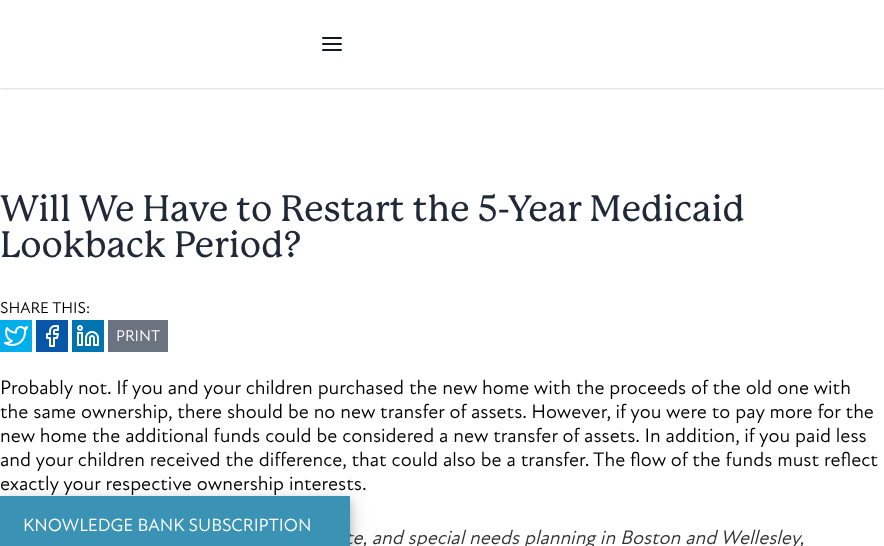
<svg xmlns="http://www.w3.org/2000/svg" width="884" height="546" viewBox="0 0 884 546">
  <defs>
    <clipPath id="clip1"><rect x="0" y="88" width="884" height="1"/></clipPath>
    <clipPath id="clip2"><rect x="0" y="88" width="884" height="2"/></clipPath>
  </defs>
  <rect width="100%" height="100%" fill="rgb(255,255,255)"/>
  <g clip-path="url(#clip1)">
    <rect x="0" y="1" width="884" height="88" fill="rgba(0,0,0,0.06)" filter="blur(1px)"/>
  </g>
  <g clip-path="url(#clip2)">
    <rect x="0" y="1" width="884" height="88" fill="rgba(0,0,0,0.1)" filter="blur(1.5px)"/>
  </g>
  <path d="M323 44H341M323 38H341M323 50H341" fill="none" stroke="rgb(17,24,39)" stroke-width="2" stroke-linecap="round" stroke-linejoin="round"/>
  <g font-family="'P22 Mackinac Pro'" font-size="36" font-weight="500" fill="rgb(31,41,55)">
    <text>
      <tspan x="0" y="221">Will We Have to Restart the 5-Year Medicaid</tspan>
      <tspan x="0" y="257">Lookback Period?</tspan>
    </text>
  </g>
  <text x="0" y="313" font-family="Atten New" font-size="16" fill="rgb(0,0,0)">SHARE THIS:</text>
  <rect x="0" y="320" width="32" height="32" fill="rgb(0,174,235)"/>
  <image x="4" y="326" width="24" height="20" href="pic1.png"/>
  <rect x="36" y="320" width="32" height="32" fill="rgb(6,87,167)"/>
  <image x="46" y="325" width="13" height="22" href="pic2.png"/>
  <rect x="72" y="320" width="32" height="32" fill="rgb(0,116,177)"/>
  <image x="77" y="325" width="22" height="21" href="pic3.png"/>
  <rect x="108" y="320" width="60" height="32" fill="rgb(107,114,128)"/>
  <text x="116" y="341" font-family="Atten New" font-size="16" fill="rgb(255,255,255)">PRINT</text>
  <g font-family="Atten New" font-size="20" fill="rgb(0,0,0)">
    <text>
      <tspan x="0" y="394">Probably not. If you and your children purchased the new home with the proceeds of the old one with</tspan>
      <tspan x="0" y="418">the same ownership, there should be no new transfer of assets. However, if you were to pay more for the</tspan>
      <tspan x="0" y="442">new home the additional funds could be considered a new transfer of assets. In addition, if you paid less</tspan>
      <tspan x="0" y="466">and your children received the difference, that could also be a transfer. The flow of the funds must reflect</tspan>
      <tspan x="0" y="490">exactly your respective ownership interests.</tspan>
    </text>
  </g>
  <text x="345" y="544" font-family="Atten New" font-size="20" font-style="italic" fill="rgb(50,50,50)">te, and special needs planning in Boston and Wellesley,</text>
  <rect x="0" y="502" width="350" height="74" fill="rgba(0,0,0,0.19)" filter="blur(10px)"/>
  <rect x="0" y="500" width="350" height="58" fill="rgba(0,0,0,0.2)" filter="blur(4px)"/>
  <rect x="0" y="496" width="350" height="50" fill="rgb(58,147,180)"/>
  <text x="23" y="531" font-family="Atten New" font-size="18" fill="rgb(255,255,255)">KNOWLEDGE BANK SUBSCRIPTION</text>
</svg>
